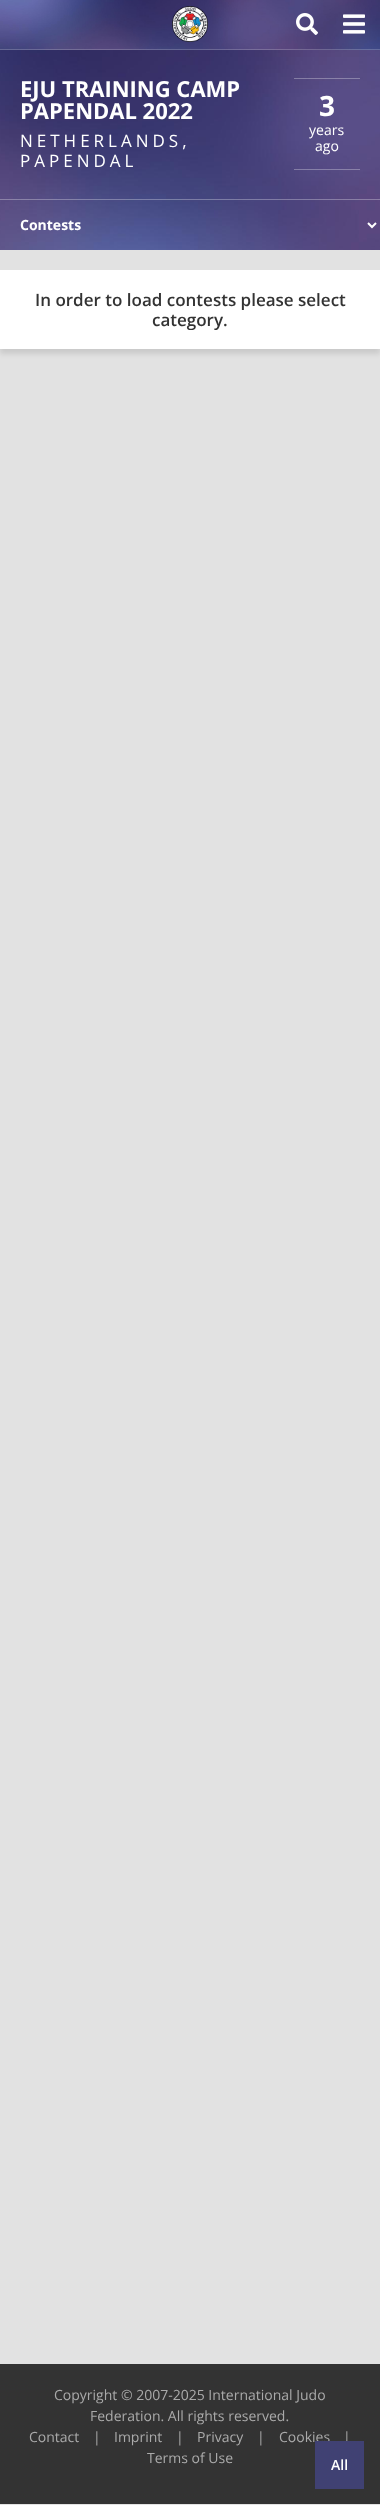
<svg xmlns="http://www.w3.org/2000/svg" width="380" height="2505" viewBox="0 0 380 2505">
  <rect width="100%" height="100%" fill="rgb(226,226,226)"/>
  <image x="0" y="0" width="380" height="50" href="pic1.png"/>
  <rect x="0" y="49" width="380" height="1" fill="rgba(255,255,255,0.2)"/>
  <image x="172" y="6" width="36" height="36" href="pic2.png"/>
  <image x="296" y="13" width="22" height="22" href="pic3.png"/>
  <image x="343" y="14" width="22" height="20" href="pic4.png"/>
  <image x="0" y="50" width="380" height="200" href="pic5.png"/>
  <g font-family="Open Sans" font-size="22" font-weight="bold" fill="rgb(255,255,255)">
    <text>
      <tspan x="20" y="97">EJU TRAINING CAMP</tspan>
      <tspan x="20" y="119">PAPENDAL 2022</tspan>
    </text>
  </g>
  <g font-family="Open Sans" font-size="17" letter-spacing="4" fill="rgb(255,255,255)">
    <text>
      <tspan x="20" y="147">NETHERLANDS,</tspan>
      <tspan x="20" y="167">PAPENDAL</tspan>
    </text>
  </g>
  <rect x="294" y="78" width="66" height="1" fill="rgba(255,255,255,0.3)"/>
  <rect x="294" y="169" width="66" height="1" fill="rgba(255,255,255,0.3)"/>
  <text x="319" y="116" font-family="Open Sans" font-size="28" font-weight="bold" fill="rgb(255,255,255)">3</text>
  <g font-family="Open Sans" font-size="14" fill="rgb(255,255,255)">
    <text x="309" y="135">years</text>
    <text x="315" y="151">ago</text>
  </g>
  <rect x="0" y="199" width="380" height="1" fill="rgba(255,255,255,0.3)"/>
  <path d="M368 223L372 227L376 223" fill="none" stroke="rgb(255,255,255)" stroke-width="2"/>
  <text x="20" y="230" font-family="Open Sans" font-size="14" font-weight="bold" fill="rgb(255,255,255)">Contests</text>
  <rect x="0" y="275" width="380" height="79" fill="rgba(0,0,0,0.1)" filter="blur(2.5px)"/>
  <rect x="0" y="270" width="380" height="79" fill="rgb(255,255,255)"/>
  <g font-family="Open Sans" font-size="17" font-weight="600" fill="rgb(51,51,51)">
    <text x="35" y="306">In order to load contests please select</text>
    <text x="152" y="326">category.</text>
  </g>
  <rect x="0" y="2364" width="380" height="140" fill="rgb(51,51,51)"/>
  <g font-family="Open Sans" font-size="14" fill="rgb(170,170,170)">
    <text x="279" y="2442">Cookies</text>
    <text x="343" y="2442">|</text>
  </g>
  <rect x="315" y="2441" width="49" height="48" fill="rgb(64,65,115)"/>
  <text x="331" y="2470" font-family="Open Sans" font-size="14" font-weight="600" fill="rgb(255,255,255)">All</text>
  <g font-family="Open Sans" font-size="14" fill="rgb(170,170,170)">
    <text x="54" y="2400">Copyright © 2007-2025 International Judo</text>
    <text x="90" y="2421">Federation. All rights reserved.</text>
    <text x="29" y="2442">Contact</text>
    <text x="93" y="2442">|</text>
    <text x="114" y="2442">Imprint</text>
    <text x="176" y="2442">|</text>
    <text x="197" y="2442">Privacy</text>
    <text x="257" y="2442">|</text>
    <text x="147" y="2463">Terms of Use</text>
  </g>
</svg>
